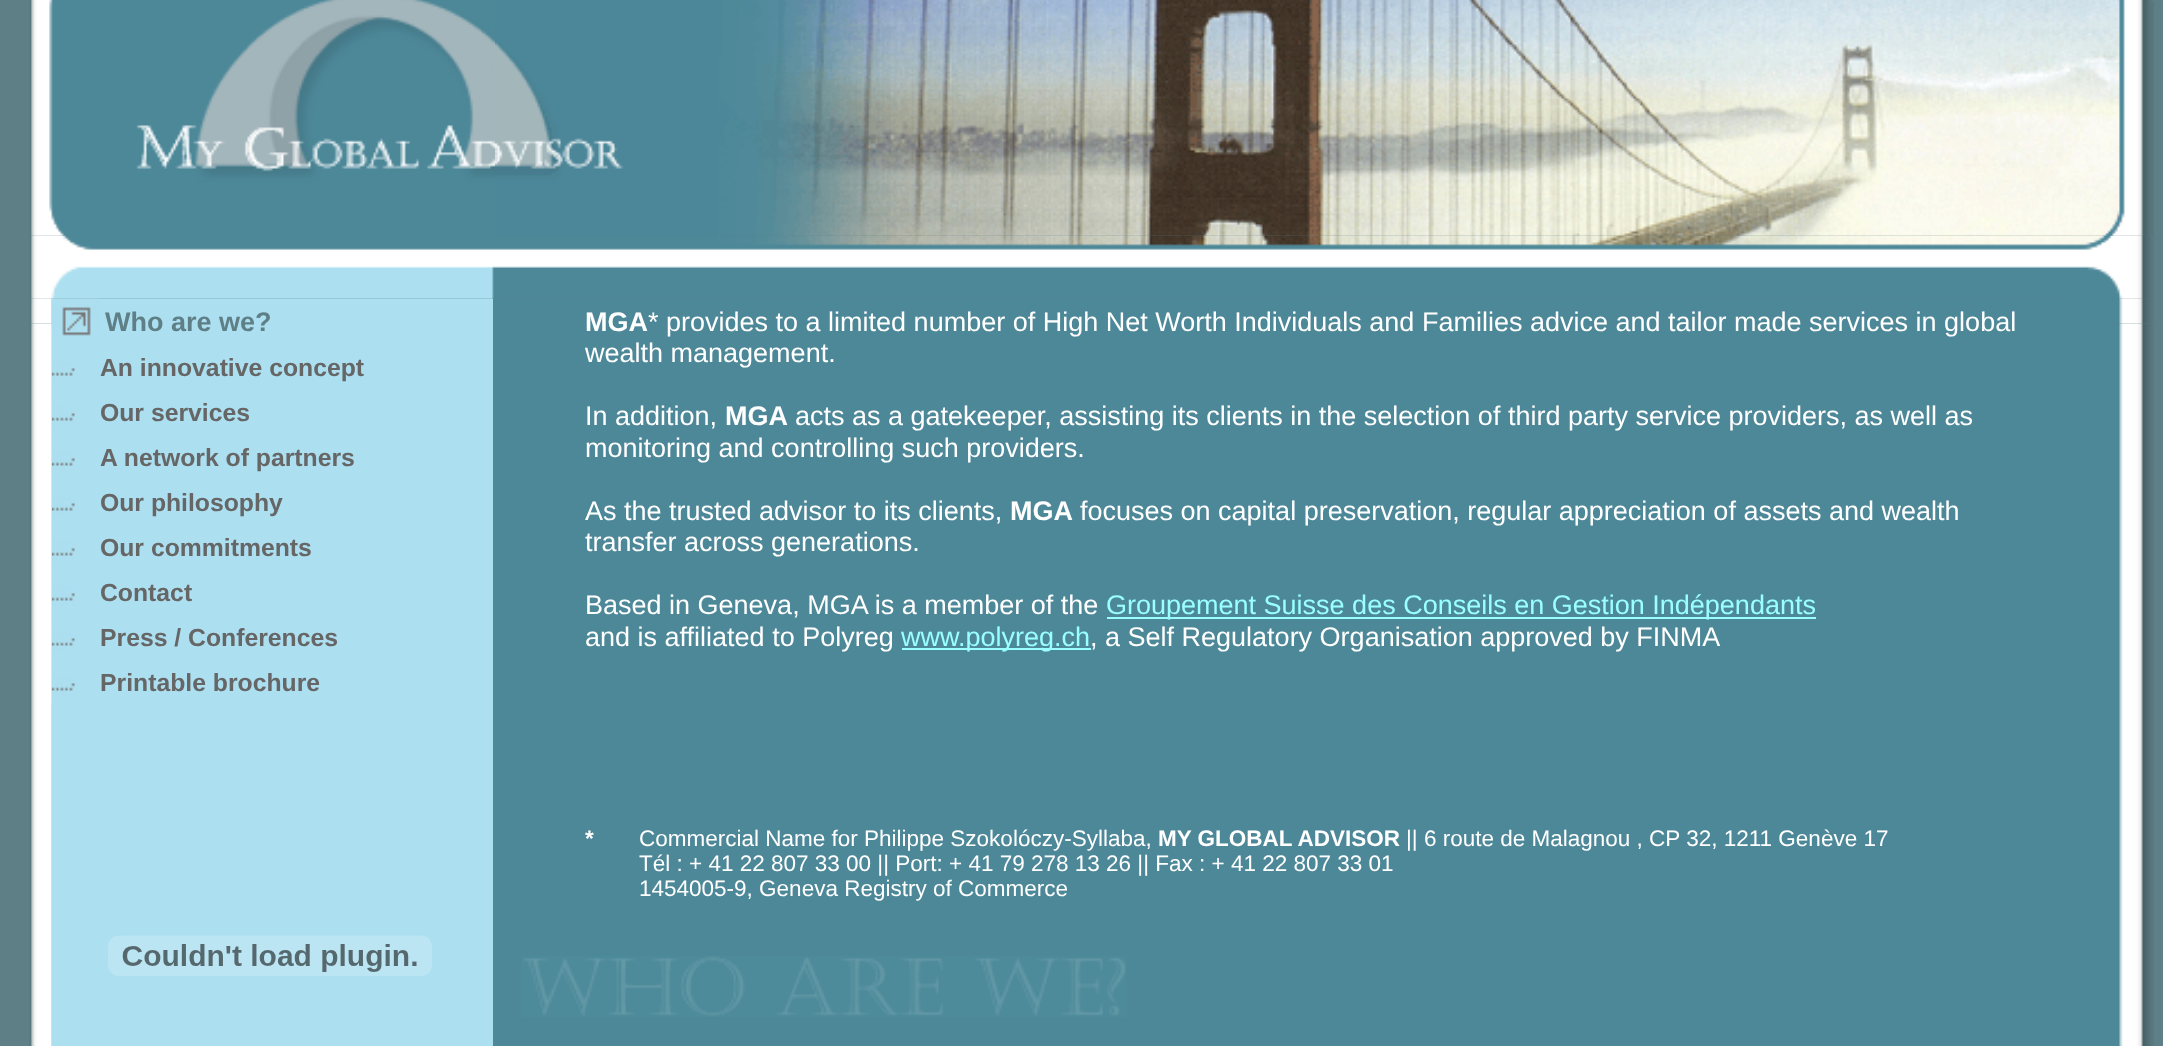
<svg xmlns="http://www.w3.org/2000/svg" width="2163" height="1046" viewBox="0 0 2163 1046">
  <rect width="100%" height="100%" fill="rgb(95,127,135)"/>
  <image x="29" y="0" width="466" height="236" href="pic1.png"/>
  <image x="495" y="0" width="639" height="236" href="pic2.png"/>
  <image x="1134" y="0" width="1020" height="236" href="pic3.png"/>
  <image x="29" y="235" width="2125" height="64" href="pic4.png"/>
  <image x="29" y="298" width="23" height="26" href="pic5.png"/>
  <rect x="52" y="299" width="441" height="747" fill="rgb(172,223,240)"/>
  <image x="51" y="298" width="48" height="46" href="pic6.png"/>
  <text x="105" y="331" font-family="Liberation Sans" font-size="27" font-weight="bold" fill="rgb(95,127,135)">Who are we?</text>
  <image x="51" y="343" width="24" height="46" href="pic7.png"/>
  <text x="100" y="376" font-family="Liberation Sans" font-size="24.75" font-weight="bold" fill="rgb(102,102,102)">An innovative concept</text>
  <image x="51" y="388" width="24" height="46" href="pic7.png"/>
  <text x="100" y="421" font-family="Liberation Sans" font-size="24.75" font-weight="bold" fill="rgb(102,102,102)">Our services</text>
  <image x="51" y="433" width="24" height="46" href="pic7.png"/>
  <text x="100" y="466" font-family="Liberation Sans" font-size="24.75" font-weight="bold" fill="rgb(102,102,102)">A network of partners</text>
  <image x="51" y="478" width="24" height="46" href="pic7.png"/>
  <text x="100" y="511" font-family="Liberation Sans" font-size="24.75" font-weight="bold" fill="rgb(102,102,102)">Our philosophy</text>
  <image x="51" y="523" width="24" height="46" href="pic7.png"/>
  <text x="100" y="556" font-family="Liberation Sans" font-size="24.75" font-weight="bold" fill="rgb(102,102,102)">Our commitments</text>
  <image x="51" y="568" width="24" height="46" href="pic7.png"/>
  <text x="100" y="601" font-family="Liberation Sans" font-size="24.75" font-weight="bold" fill="rgb(102,102,102)">Contact</text>
  <image x="51" y="613" width="24" height="46" href="pic7.png"/>
  <text x="100" y="646" font-family="Liberation Sans" font-size="24.75" font-weight="bold" fill="rgb(102,102,102)">Press / Conferences</text>
  <image x="51" y="658" width="24" height="46" href="pic7.png"/>
  <text x="100" y="691" font-family="Liberation Sans" font-size="24.75" font-weight="bold" fill="rgb(102,102,102)">Printable brochure</text>
  <image x="108" y="935" width="324" height="41" href="pic8.png"/>
  <rect x="493" y="299" width="1573" height="747" fill="rgb(77,136,153)"/>
  <image x="522" y="956" width="604" height="61" href="pic9.png"/>
  <text x="585" y="331" font-family="Liberation Sans" font-size="27" font-weight="bold" fill="rgb(255,255,255)">MGA</text>
  <g font-family="Liberation Sans" font-size="27" fill="rgb(255,255,255)">
    <text x="648" y="331">* provides to a limited number of High Net Worth Individuals and Families advice and tailor made services in global</text>
    <text x="585" y="362">wealth management.</text>
    <text x="585" y="425">In addition,</text>
  </g>
  <text x="725" y="425" font-family="Liberation Sans" font-size="27" font-weight="bold" fill="rgb(255,255,255)">MGA</text>
  <g font-family="Liberation Sans" font-size="27" fill="rgb(255,255,255)">
    <text x="795" y="425">acts as a gatekeeper, assisting its clients in the selection of third party service providers, as well as</text>
    <text x="585" y="457">monitoring and controlling such providers.</text>
    <text x="585" y="520">As the trusted advisor to its clients,</text>
  </g>
  <text x="1010" y="520" font-family="Liberation Sans" font-size="27" font-weight="bold" fill="rgb(255,255,255)">MGA</text>
  <g font-family="Liberation Sans" font-size="27" fill="rgb(255,255,255)">
    <text x="1080" y="520">focuses on capital preservation, regular appreciation of assets and wealth</text>
    <text x="585" y="551">transfer across generations.</text>
    <text x="585" y="614">Based in Geneva, MGA is a member of the</text>
  </g>
  <rect x="1107" y="617" width="709" height="2" fill="rgb(153,255,255)"/>
  <text x="1106" y="614" font-family="Liberation Sans" font-size="27" fill="rgb(153,255,255)">Groupement Suisse des Conseils en Gestion Indépendants</text>
  <text x="585" y="646" font-family="Liberation Sans" font-size="27" fill="rgb(255,255,255)">and is affiliated to Polyreg</text>
  <rect x="902" y="648" width="189" height="2" fill="rgb(153,255,255)"/>
  <text x="901" y="646" font-family="Liberation Sans" font-size="27" fill="rgb(153,255,255)">www.polyreg.ch</text>
  <text x="1090" y="646" font-family="Liberation Sans" font-size="27" fill="rgb(255,255,255)">, a Self Regulatory Organisation approved by FINMA</text>
  <text x="585" y="846" font-family="Liberation Sans" font-size="22.5" font-weight="bold" fill="rgb(255,255,255)">*</text>
  <text x="639" y="846" font-family="Liberation Sans" font-size="22.5" fill="rgb(255,255,255)">Commercial Name for Philippe Szokolóczy-Syllaba,</text>
  <text x="1158" y="846" font-family="Liberation Sans" font-size="22.5" font-weight="bold" fill="rgb(255,255,255)">MY GLOBAL ADVISOR</text>
  <g font-family="Liberation Sans" font-size="22.5" fill="rgb(255,255,255)">
    <text x="1406" y="846">|| 6 route de Malagnou , CP 32, 1211 Genève 17</text>
    <text>
      <tspan x="639" y="871">Tél : + 41 22 807 33 00 || Port: + 41 79 278 13 26 || Fax : + 41 22 807 33 01</tspan>
      <tspan x="639" y="896">1454005-9, Geneva Registry of Commerce</tspan>
    </text>
  </g>
  <image x="2066" y="298" width="88" height="26" href="pic10.png"/>
  <image x="29" y="323" width="23" height="723" href="pic11.png"/>
  <image x="2066" y="323" width="88" height="723" href="pic12.png"/>
</svg>
